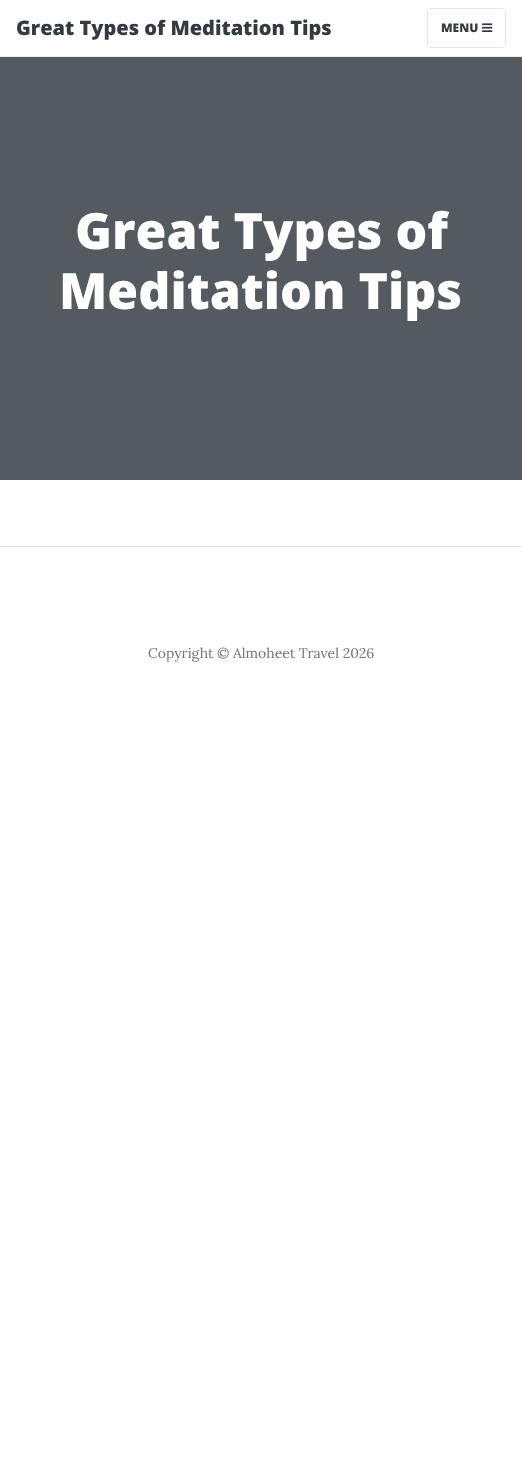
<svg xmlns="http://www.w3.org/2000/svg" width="522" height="1463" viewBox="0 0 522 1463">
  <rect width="100%" height="100%" fill="rgb(255,255,255)"/>
  <rect x="0" y="56" width="522" height="1" fill="rgb(233,236,239)"/>
  <text x="16" y="35" font-family="Open Sans" font-size="20" font-weight="800" fill="rgb(52,58,64)">Great Types of Meditation Tips</text>
  <rect x="427.5" y="8.5" width="78" height="39" rx="3.5" fill="none" stroke="rgb(230,230,230)"/>
  <text x="441" y="32" font-family="Open Sans" font-size="12" font-weight="800" fill="rgb(52,58,64)">MENU</text>
  <image x="482" y="23" width="11" height="9" href="pic1.png"/>
  <rect x="0" y="57" width="522" height="423" fill="rgb(84,90,96)"/>
  <g font-family="Open Sans" font-size="50" font-weight="800" fill="rgb(255,255,255)">
    <text x="75" y="249">Great Types of</text>
    <text x="59" y="309">Meditation Tips</text>
  </g>
  <rect x="0" y="546" width="522" height="1" fill="rgb(230,230,230)"/>
  <text x="148" y="658" font-family="Lora" font-size="14" fill="rgb(108,117,125)">Copyright © Almoheet Travel 2026</text>
</svg>
